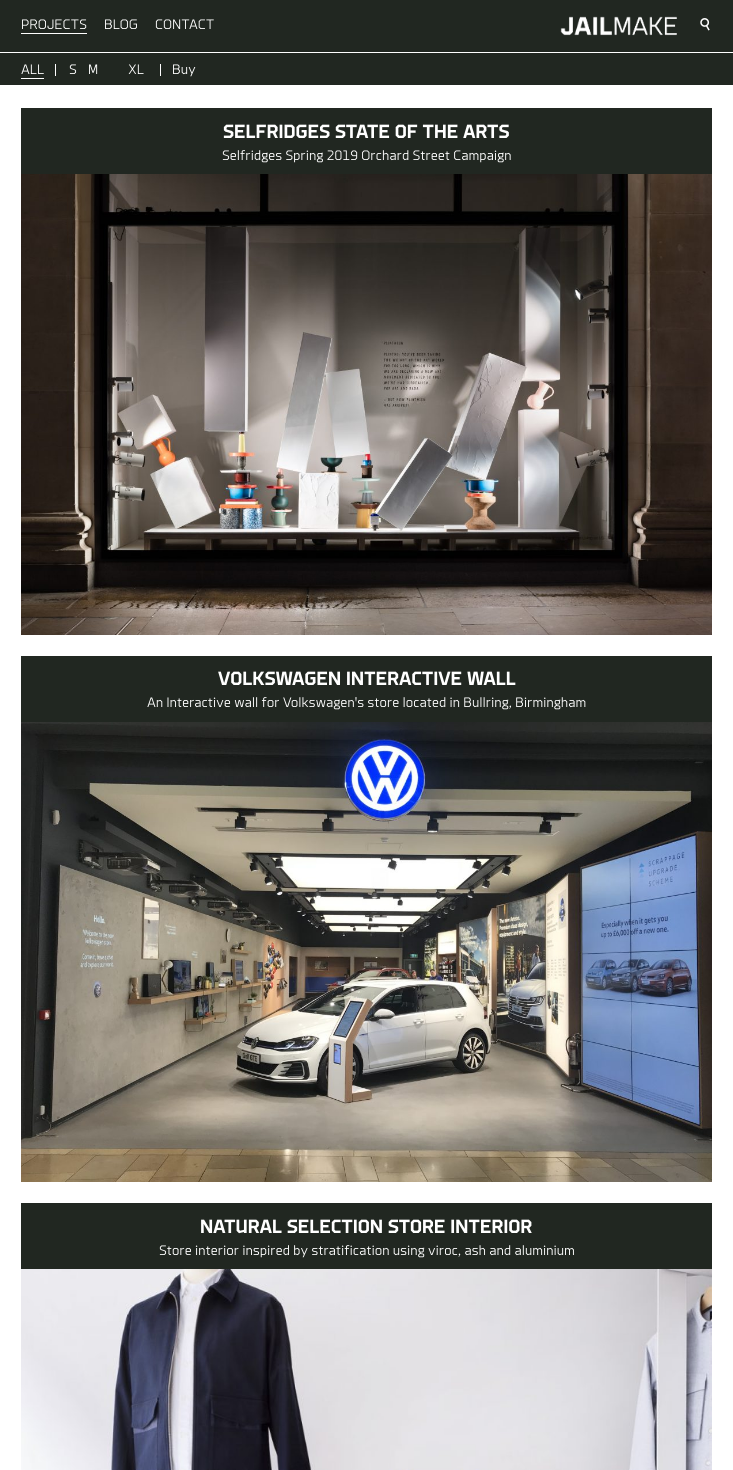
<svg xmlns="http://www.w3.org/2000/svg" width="733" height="1470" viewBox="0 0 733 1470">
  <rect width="100%" height="100%" fill="rgb(255,255,255)"/>
  <rect x="0" y="0" width="733" height="52" fill="rgb(33,39,33)"/>
  <image x="560" y="16" width="117" height="20" href="pic1.png"/>
  <image x="22" y="19" width="65" height="10" href="pic2.png"/>
  <rect x="21" y="33" width="66" height="1" fill="rgb(255,255,255)"/>
  <image x="105" y="19" width="32" height="10" href="pic3.png"/>
  <image x="155" y="19" width="59" height="10" href="pic4.png"/>
  <image x="700" y="18" width="10" height="13" href="pic5.png"/>
  <rect x="0" y="53" width="733" height="32" fill="rgb(33,39,33)"/>
  <image x="21" y="64" width="23" height="10" href="pic6.png"/>
  <rect x="55" y="64" width="1" height="12" fill="rgb(255,255,255)"/>
  <rect x="21" y="78" width="23" height="1" fill="rgb(255,255,255)"/>
  <image x="69" y="64" width="8" height="10" href="pic7.png"/>
  <image x="89" y="64" width="9" height="10" href="pic8.png"/>
  <image x="128" y="64" width="16" height="10" href="pic9.png"/>
  <rect x="160" y="64" width="1" height="12" fill="rgb(255,255,255)"/>
  <image x="173" y="64" width="23" height="13" href="pic10.png"/>
  <rect x="21" y="108" width="691" height="66" fill="rgb(33,39,33)"/>
  <image x="223" y="124" width="286" height="14" href="pic11.png"/>
  <image x="222" y="150" width="289" height="13" href="pic12.png"/>
  <image x="21" y="174" width="691" height="461" href="pic13.png"/>
  <rect x="21" y="656" width="691" height="66" fill="rgb(33,39,33)"/>
  <image x="218" y="671" width="298" height="14" href="pic14.png"/>
  <image x="147" y="697" width="439" height="13" href="pic15.png"/>
  <image x="21" y="722" width="691" height="460" href="pic16.png"/>
  <rect x="21" y="1203" width="691" height="66" fill="rgb(33,39,33)"/>
  <image x="201" y="1219" width="331" height="15" href="pic17.png"/>
  <image x="159" y="1245" width="415" height="13" href="pic18.png"/>
  <image x="21" y="1269" width="691" height="201" href="pic19.png"/>
</svg>
